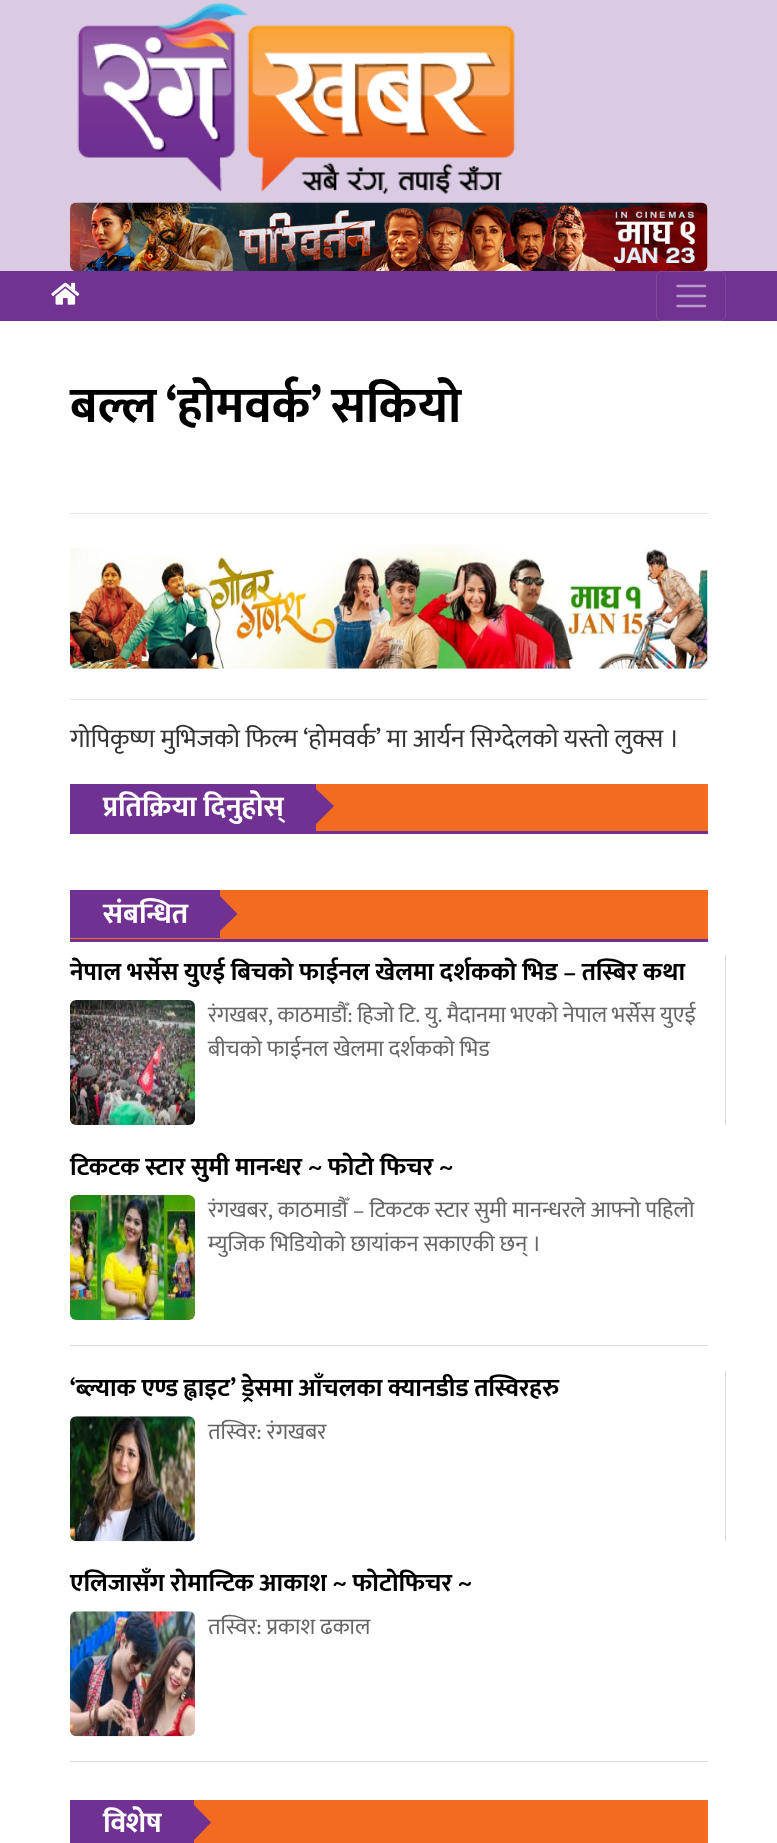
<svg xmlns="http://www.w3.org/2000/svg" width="777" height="1843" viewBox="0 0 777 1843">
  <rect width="100%" height="100%" fill="rgb(255,255,255)"/>
  <rect x="0" y="0" width="777" height="271" fill="rgb(218,203,227)"/>
  <image x="77" y="2" width="439" height="192" href="pic1.png"/>
  <image x="70" y="202" width="638" height="69" href="pic2.png"/>
  <rect x="0" y="271" width="777" height="50" fill="rgb(114,50,146)"/>
  <image x="51" y="282" width="29" height="23" href="pic3.png"/>
  <rect x="656.5" y="271.5" width="69" height="49" rx="4.5" fill="none" stroke="rgb(128,71,157)"/>
  <path d="M677.5 286H705M677.5 296H705M677.5 306H705" fill="none" stroke="rgb(185,153,201)" stroke-width="2.5" stroke-linecap="round"/>
  <text x="70" y="422" word-spacing="-2" font-family="Mukta" font-size="50" font-weight="bold" fill="rgb(0,0,0)">बल्ल ‘होमवर्क’ सकियो</text>
  <rect x="70" y="513" width="638" height="1" fill="rgb(230,230,230)"/>
  <image x="70" y="544" width="638" height="125" href="pic4.png"/>
  <rect x="70" y="699" width="638" height="1" fill="rgb(230,230,230)"/>
  <text x="70" y="747" word-spacing="-0.25" font-family="Mukta" font-size="26" fill="rgb(51,51,51)">गोपिकृष्ण मुभिजको फिल्म ‘होमवर्क’ मा आर्यन सिग्देलको यस्तो लुक्स ।</text>
  <rect x="316" y="784" width="392" height="47" fill="rgb(243,107,33)"/>
  <rect x="70" y="831" width="638" height="3" fill="rgb(112,49,146)"/>
  <rect x="70" y="784" width="246" height="47" fill="rgb(112,49,146)"/>
  <text x="103" y="816" font-family="Mukta" font-size="28.75" font-weight="bold" fill="rgb(255,255,255)">प्रतिक्रिया दिनुहोस्</text>
  <path d="M316 824V789L334 806Z" fill="rgb(112,49,146)"/>
  <rect x="70" y="890" width="638" height="49" fill="rgb(243,107,33)"/>
  <rect x="70" y="939" width="638" height="3" fill="rgb(112,49,146)"/>
  <rect x="70" y="890" width="150" height="48" fill="rgb(112,49,146)"/>
  <text x="103" y="923" font-family="Mukta" font-size="28.75" font-weight="bold" fill="rgb(255,255,255)">संबन्धित</text>
  <path d="M220 931V896L237.5 914Z" fill="rgb(112,49,146)"/>
  <rect x="725" y="955" width="1" height="170" fill="rgb(221,221,221)"/>
  <text x="70" y="980" font-family="Mukta" font-size="25" font-weight="bold" fill="rgb(0,0,0)">नेपाल भर्सेस युएई बिचको फाईनल खेलमा दर्शकको भिड – तस्बिर कथा</text>
  <image x="70" y="1000" width="125" height="125" href="pic5.png"/>
  <g font-family="Mukta" font-size="22.5" fill="rgb(101,101,101)">
    <text>
      <tspan x="208" y="1022" word-spacing="-0.25">रंगखबर, काठमाडौँ: हिजो टि. यु. मैदानमा भएको नेपाल भर्सेस युएई</tspan>
      <tspan x="208" y="1056">बीचको फाईनल खेलमा दर्शकको भिड</tspan>
    </text>
  </g>
  <text x="70" y="1175" font-family="Mukta" font-size="25" font-weight="bold" fill="rgb(0,0,0)">टिकटक स्टार सुमी मानन्धर ~ फोटो फिचर ~</text>
  <image x="70" y="1195" width="125" height="125" href="pic6.png"/>
  <g font-family="Mukta" font-size="22.5" fill="rgb(101,101,101)">
    <text>
      <tspan x="208" y="1217">रंगखबर, काठमाडौँ – टिकटक स्टार सुमी मानन्धरले आफ्नो पहिलो</tspan>
      <tspan x="208" y="1251">म्युजिक भिडियोको छायांकन सकाएकी छन् ।</tspan>
    </text>
  </g>
  <rect x="70" y="1345" width="638" height="1" fill="rgb(221,221,221)"/>
  <rect x="725" y="1371" width="1" height="170" fill="rgb(221,221,221)"/>
  <text x="70" y="1396" word-spacing="-0.25" font-family="Mukta" font-size="25" font-weight="bold" fill="rgb(0,0,0)">‘ब्ल्याक एण्ड ह्वाइट’ ड्रेसमा आँचलका क्यानडीड तस्विरहरु</text>
  <image x="70" y="1416" width="125" height="126" href="pic7.png"/>
  <text x="208" y="1439" font-family="Mukta" font-size="22.5" fill="rgb(101,101,101)">तस्विर: रंगखबर</text>
  <text x="70" y="1591" font-family="Mukta" font-size="25" font-weight="bold" fill="rgb(0,0,0)">एलिजासँग रोमान्टिक आकाश ~ फोटोफिचर ~</text>
  <image x="70" y="1611" width="125" height="126" href="pic8.png"/>
  <text x="208" y="1634" font-family="Mukta" font-size="22.5" fill="rgb(101,101,101)">तस्विर: प्रकाश ढकाल</text>
  <rect x="70" y="1761" width="638" height="1" fill="rgb(221,221,221)"/>
  <rect x="194" y="1800" width="514" height="43" fill="rgb(243,107,33)"/>
  <rect x="70" y="1800" width="124" height="43" fill="rgb(112,49,146)"/>
  <text x="103" y="1832" font-family="Mukta" font-size="28.75" font-weight="bold" fill="rgb(255,255,255)">विशेष</text>
  <path d="M194 1840V1805L211 1822.5Z" fill="rgb(112,49,146)"/>
</svg>
